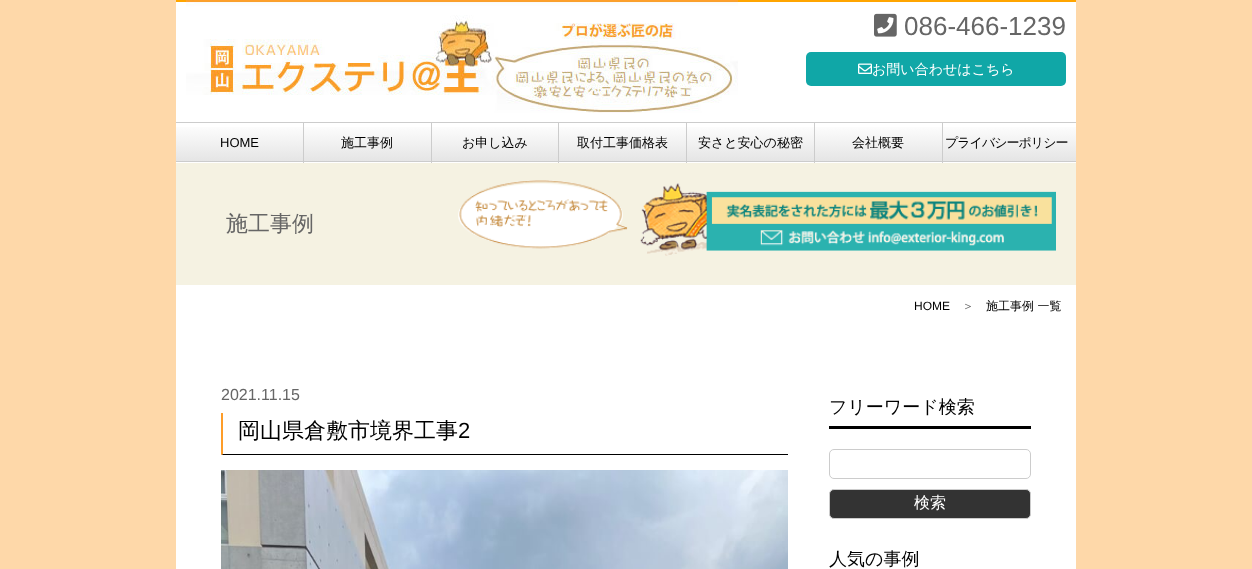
<svg xmlns="http://www.w3.org/2000/svg" width="1252" height="569" viewBox="0 0 1252 569">
  <defs>
    <linearGradient id="g1" gradientUnits="userSpaceOnUse" x1="626" y1="123" x2="626" y2="161"><stop offset="0" stop-color="rgb(255,255,255)"/><stop offset="1" stop-color="rgb(229,229,229)"/></linearGradient>
  </defs>
  <rect width="100%" height="100%" fill="rgb(254,216,169)"/>
  <rect x="176" y="0" width="900" height="2" fill="rgb(255,165,0)"/>
  <rect x="176" y="2" width="900" height="567" fill="rgb(255,255,255)"/>
  <image x="186" y="0" width="552" height="113" href="pic1.png"/>
  <image x="874" y="13" width="23" height="24" href="pic2.png"/>
  <text x="904" y="35" font-family="Liberation Sans" font-size="26" fill="rgb(102,102,102)">086-466-1239</text>
  <rect x="806" y="52" width="260" height="34" rx="5" fill="rgb(16,167,167)"/>
  <image x="858" y="63" width="14" height="11" href="pic3.png"/>
  <text x="872" y="74" font-family="WenQuanYi Zen Hei" font-size="14" font-weight="500" fill="rgb(255,255,255)">お問い合わせはこちら</text>
  <rect x="176" y="127" width="900" height="34" fill="url(#g1)"/>
  <rect x="176" y="122" width="900" height="1" fill="rgb(204,204,204)"/>
  <rect x="176" y="161" width="900" height="1" fill="rgb(204,204,204)"/>
  <rect x="303" y="123" width="1" height="40" fill="rgb(204,204,204)"/>
  <text x="220" y="147" font-family="Liberation Sans" font-size="13" fill="rgb(0,0,0)">HOME</text>
  <rect x="431" y="123" width="1" height="40" fill="rgb(204,204,204)"/>
  <text x="341" y="147" font-family="WenQuanYi Zen Hei" font-size="13" font-weight="500" fill="rgb(0,0,0)">施工事例</text>
  <rect x="558" y="123" width="1" height="40" fill="rgb(204,204,204)"/>
  <text x="462" y="147" font-family="WenQuanYi Zen Hei" font-size="13" font-weight="500" fill="rgb(0,0,0)">お申し込み</text>
  <rect x="686" y="123" width="1" height="40" fill="rgb(204,204,204)"/>
  <text x="577" y="147" font-family="WenQuanYi Zen Hei" font-size="13" font-weight="500" fill="rgb(0,0,0)">取付工事価格表</text>
  <rect x="814" y="123" width="1" height="40" fill="rgb(204,204,204)"/>
  <text x="698" y="147" font-family="WenQuanYi Zen Hei" font-size="13" font-weight="500" fill="rgb(0,0,0)">安さと安心の秘密</text>
  <rect x="942" y="123" width="1" height="40" fill="rgb(204,204,204)"/>
  <text x="852" y="147" font-family="WenQuanYi Zen Hei" font-size="13" font-weight="500" fill="rgb(0,0,0)">会社概要</text>
  <text x="945" y="147" font-family="WenQuanYi Zen Hei" font-size="13" font-weight="500" letter-spacing="-1" fill="rgb(0,0,0)">プライバシーポリシー</text>
  <rect x="176" y="163" width="900" height="122" fill="rgb(245,242,226)"/>
  <text x="226" y="231" font-family="WenQuanYi Zen Hei" font-size="22" font-weight="500" fill="rgb(102,102,102)">施工事例</text>
  <image x="458" y="180" width="598" height="76" href="pic4.png"/>
  <text x="914" y="310" font-family="Liberation Sans" font-size="12" fill="rgb(0,0,0)">HOME</text>
  <text x="962" y="310" font-family="WenQuanYi Zen Hei" font-size="12" font-weight="500" fill="rgb(102,102,102)">＞</text>
  <text x="986" y="310" font-family="WenQuanYi Zen Hei" font-size="12" font-weight="500" fill="rgb(0,0,0)">施工事例 一覧</text>
  <text x="221" y="400" font-family="Liberation Sans" font-size="16" fill="rgb(102,102,102)">2021.11.15</text>
  <path d="M788 455H221L223 454H788Z" fill="rgb(0,0,0)"/>
  <path d="M221 455V413H223V454Z" fill="rgb(254,157,41)"/>
  <text x="238" y="438" font-family="WenQuanYi Zen Hei" font-size="22" font-weight="500" fill="rgb(0,0,0)">岡山県倉敷市境界工事</text>
  <text x="458" y="438" font-family="Liberation Sans" font-size="22" fill="rgb(0,0,0)">2</text>
  <image x="221" y="470" width="567" height="99" href="pic5.png"/>
  <rect x="829" y="426" width="202" height="3" fill="rgb(0,0,0)"/>
  <text x="829" y="413" font-family="WenQuanYi Zen Hei" font-size="18" font-weight="500" fill="rgb(0,0,0)">フリーワード検索</text>
  <rect x="829.5" y="449.5" width="201" height="29" rx="4.5" fill="none" stroke="rgb(204,204,204)"/>
  <rect x="829.5" y="489.5" width="201" height="29" rx="4.5" fill="rgb(51,51,51)" stroke="rgb(204,204,204)"/>
  <text x="914" y="508" font-family="WenQuanYi Zen Hei" font-size="16" font-weight="500" fill="rgb(255,255,255)">検索</text>
  <text x="829" y="565" font-family="WenQuanYi Zen Hei" font-size="18" font-weight="500" fill="rgb(0,0,0)">人気の事例</text>
</svg>
